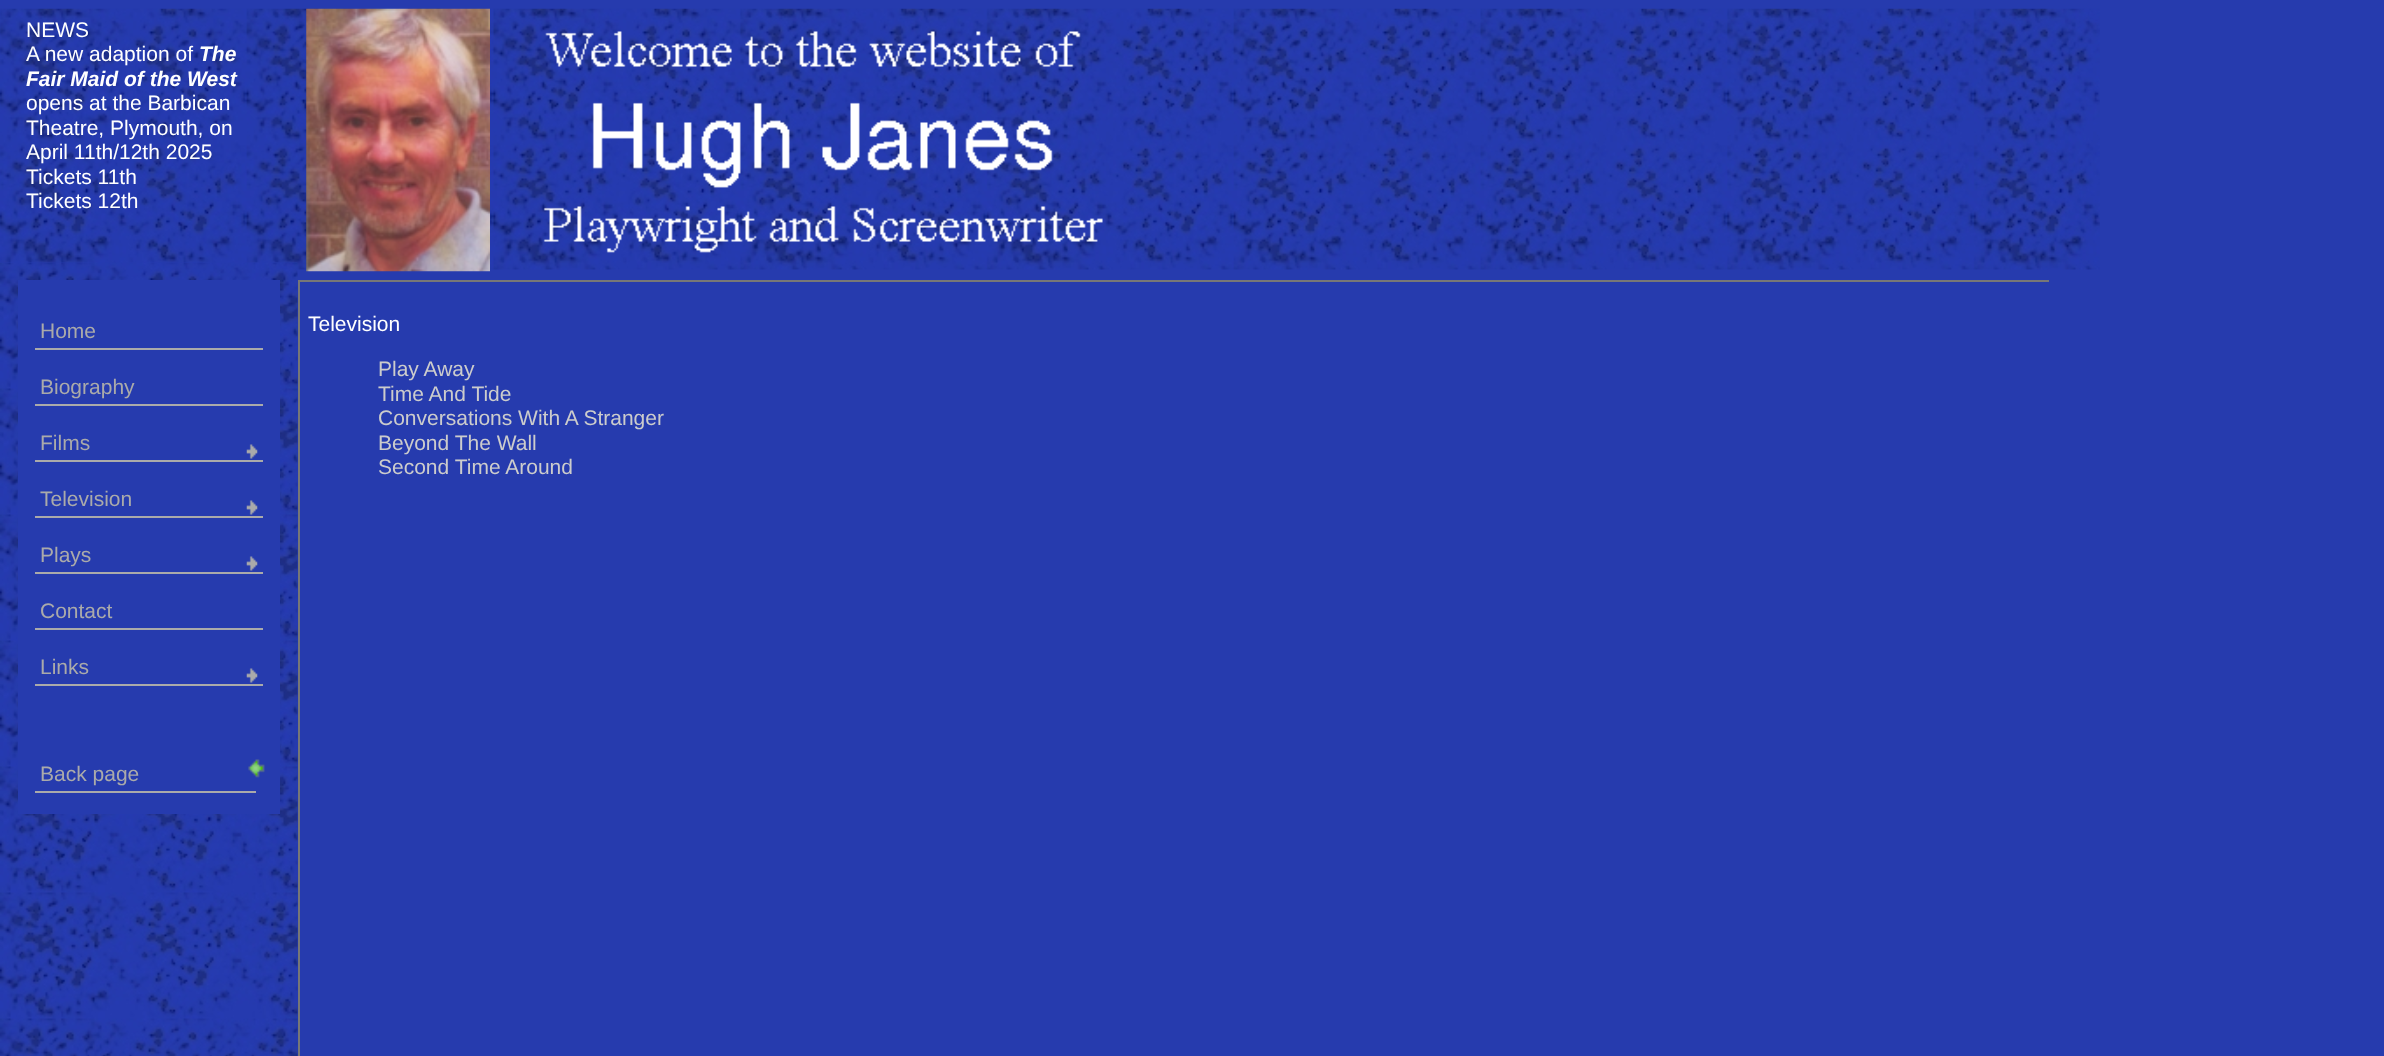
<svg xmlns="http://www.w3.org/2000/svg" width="2384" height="1056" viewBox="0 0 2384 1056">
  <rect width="100%" height="100%" fill="rgb(38,59,174)"/>
  <image x="0" y="8" width="2100" height="262" href="pic1.png"/>
  <image x="306" y="8" width="184" height="264" href="pic2.png"/>
  <image x="543" y="31" width="560" height="222" href="pic3.png"/>
  <g font-family="Liberation Sans" font-size="21" fill="rgb(255,255,255)">
    <text>
      <tspan x="26" y="37">NEWS</tspan>
      <tspan x="26" y="61">A new adaption of</tspan>
    </text>
  </g>
  <g font-family="Liberation Sans" font-size="21" font-weight="bold" font-style="italic" fill="rgb(255,255,255)">
    <text x="199" y="61">The</text>
    <text x="26" y="86">Fair Maid of the West</text>
  </g>
  <g font-family="Liberation Sans" font-size="21" fill="rgb(255,255,255)">
    <text>
      <tspan x="26" y="110">opens at the Barbican</tspan>
      <tspan x="26" y="135">Theatre, Plymouth, on</tspan>
      <tspan x="26" y="159">April 11th/12th 2025</tspan>
      <tspan x="26" y="184">Tickets 11th</tspan>
      <tspan x="26" y="208">Tickets 12th</tspan>
    </text>
  </g>
  <image x="0" y="262" width="298" height="794" href="pic4.png"/>
  <rect x="18" y="280" width="262" height="534" fill="rgb(38,59,174)"/>
  <rect x="35" y="348" width="228" height="2" fill="rgb(170,170,170)"/>
  <text x="40" y="338" font-family="Liberation Sans" font-size="21" fill="rgb(170,170,170)">Home</text>
  <rect x="35" y="404" width="228" height="2" fill="rgb(170,170,170)"/>
  <text x="40" y="394" font-family="Liberation Sans" font-size="21" fill="rgb(170,170,170)">Biography</text>
  <rect x="35" y="460" width="228" height="2" fill="rgb(170,170,170)"/>
  <text x="40" y="450" font-family="Liberation Sans" font-size="21" fill="rgb(170,170,170)">Films</text>
  <image x="246" y="444" width="12" height="15" href="pic5.png"/>
  <rect x="35" y="516" width="228" height="2" fill="rgb(170,170,170)"/>
  <text x="40" y="506" font-family="Liberation Sans" font-size="21" fill="rgb(170,170,170)">Television</text>
  <image x="246" y="500" width="12" height="15" href="pic5.png"/>
  <rect x="35" y="572" width="228" height="2" fill="rgb(170,170,170)"/>
  <text x="40" y="562" font-family="Liberation Sans" font-size="21" fill="rgb(170,170,170)">Plays</text>
  <image x="246" y="556" width="12" height="15" href="pic5.png"/>
  <rect x="35" y="628" width="228" height="2" fill="rgb(170,170,170)"/>
  <text x="40" y="618" font-family="Liberation Sans" font-size="21" fill="rgb(170,170,170)">Contact</text>
  <rect x="35" y="684" width="228" height="2" fill="rgb(170,170,170)"/>
  <text x="40" y="674" font-family="Liberation Sans" font-size="21" fill="rgb(170,170,170)">Links</text>
  <image x="246" y="668" width="12" height="15" href="pic5.png"/>
  <rect x="35" y="791" width="221" height="2" fill="rgb(170,170,170)"/>
  <text x="40" y="781" font-family="Liberation Sans" font-size="21" fill="rgb(170,170,170)">Back page</text>
  <image x="248" y="759" width="17" height="19" href="pic6.png"/>
  <rect x="298" y="280" width="1751" height="2" fill="rgb(119,119,119)"/>
  <rect x="298" y="280" width="2" height="776" fill="rgb(119,119,119)"/>
  <text x="308" y="331" font-family="Liberation Sans" font-size="21" fill="rgb(255,255,255)">Television</text>
  <g font-family="Liberation Sans" font-size="21" fill="rgb(204,204,204)">
    <text>
      <tspan x="378" y="376">Play Away</tspan>
      <tspan x="378" y="401">Time And Tide</tspan>
      <tspan x="378" y="425">Conversations With A Stranger</tspan>
      <tspan x="378" y="450">Beyond The Wall</tspan>
      <tspan x="378" y="474">Second Time Around</tspan>
    </text>
  </g>
</svg>
